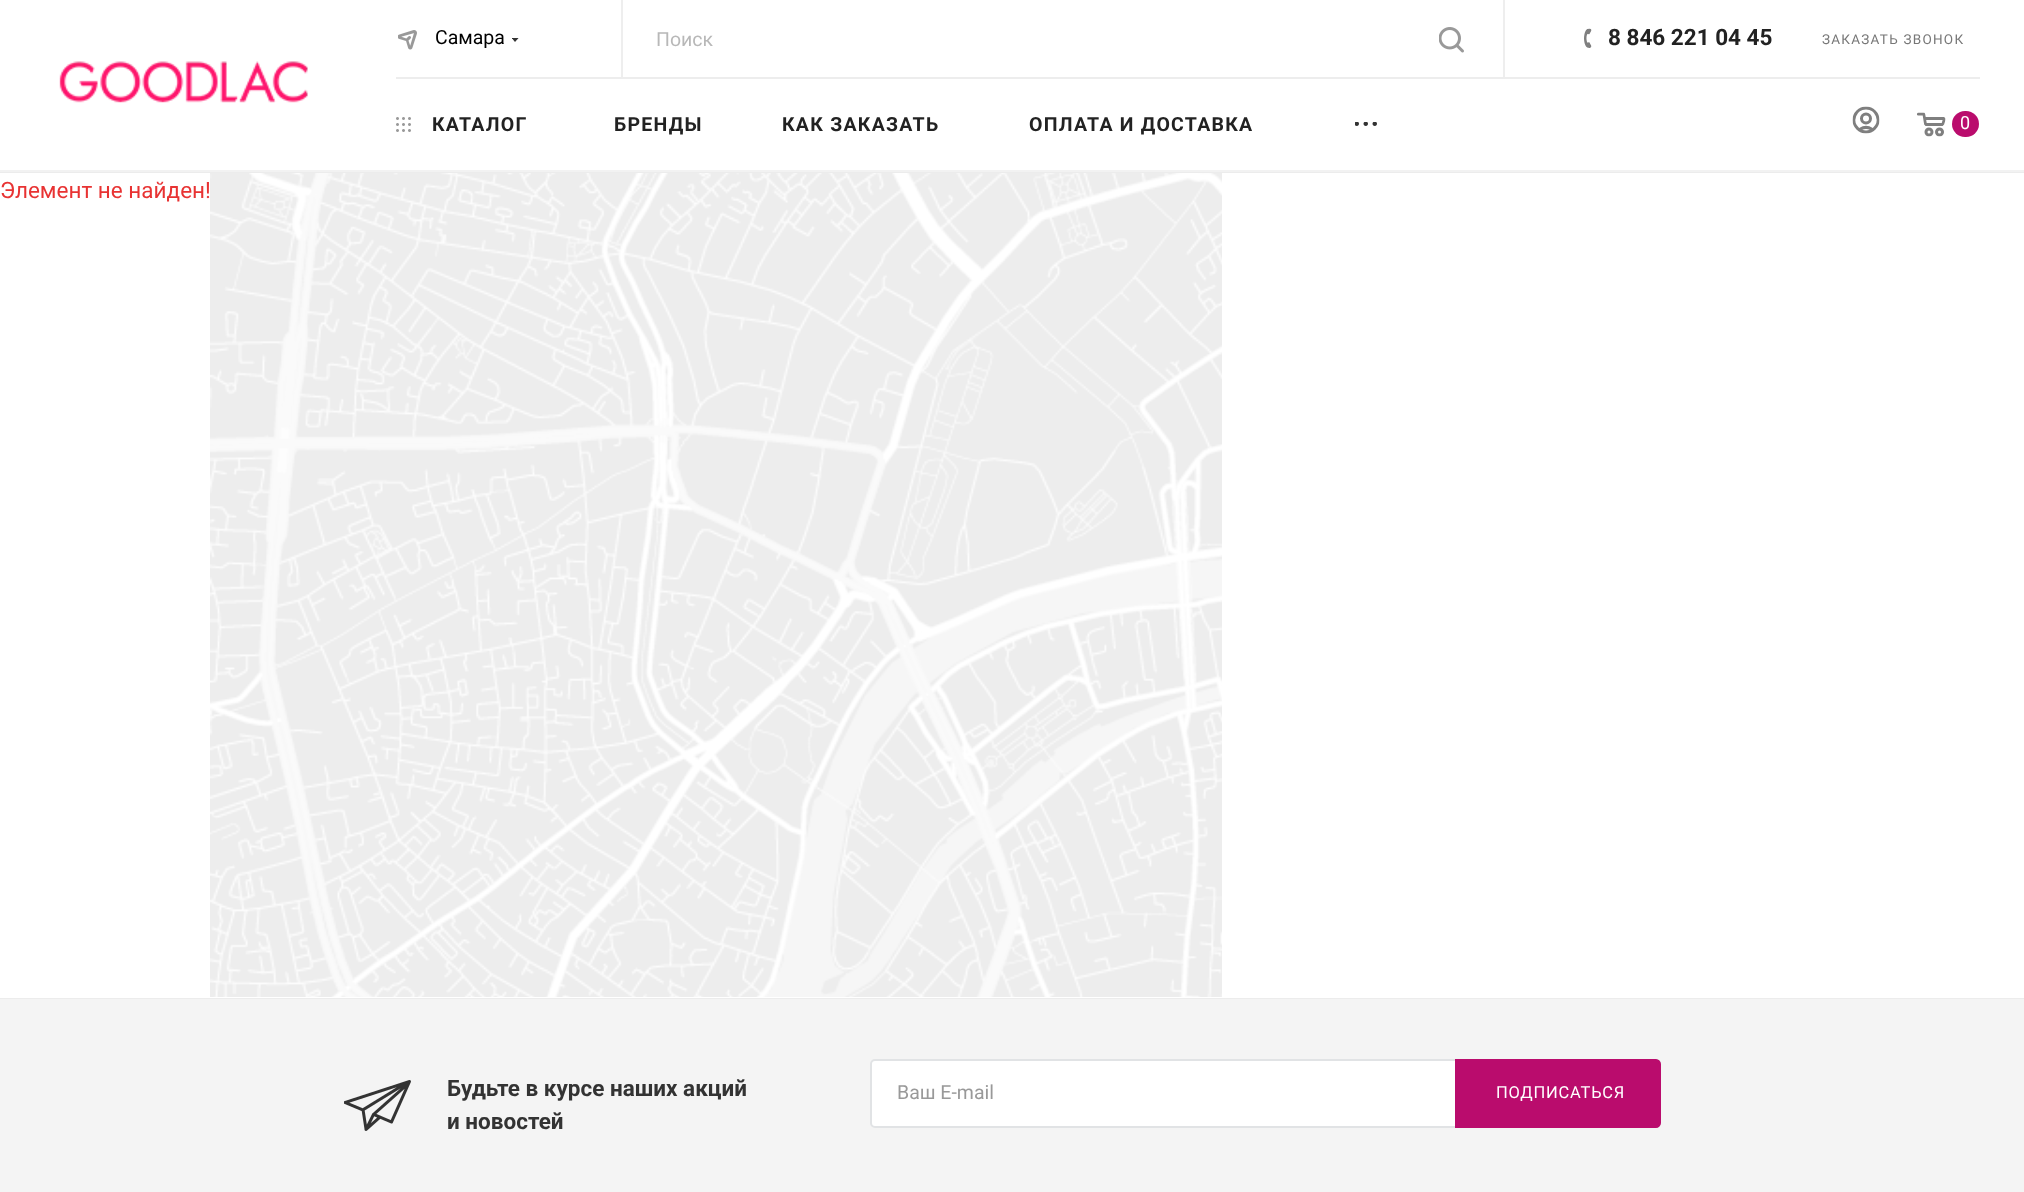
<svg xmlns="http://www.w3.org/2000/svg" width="2024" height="1192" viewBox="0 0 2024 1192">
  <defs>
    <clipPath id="clip1"><rect x="512" y="38" width="7" height="5"/></clipPath>
  </defs>
  <rect width="100%" height="100%" fill="rgb(255,255,255)"/>
  <image x="59" y="61" width="249" height="42" href="pic1.png"/>
  <image x="398" y="30" width="19" height="20" href="pic2.png"/>
  <text x="435" y="44" font-family="Roboto" font-size="19.5" fill="rgb(0,0,0)">Самара</text>
  <g clip-path="url(#clip1)">
    <path d="M511.5 37.5H519L515 42Z" fill="rgb(51,51,51)" fill-rule="evenodd"/>
  </g>
  <rect x="1503" y="0" width="2" height="77" fill="rgb(238,238,238)"/>
  <rect x="621" y="0" width="2" height="77" fill="rgb(238,238,238)"/>
  <text x="656" y="46" font-family="Roboto" font-size="19.5" fill="rgb(184,184,184)">Поиск</text>
  <image x="1439" y="27" width="25" height="26" href="pic3.png"/>
  <image x="1584" y="28" width="8" height="20" href="pic4.png"/>
  <text x="1608" y="45" font-family="Roboto" font-size="22.5" font-weight="bold" fill="rgb(34,34,34)">8 846 221 04 45</text>
  <text x="1822" y="44" font-family="Roboto" font-size="13.5" letter-spacing="1.25" fill="rgb(119,119,119)">ЗАКАЗАТЬ ЗВОНОК</text>
  <rect x="396" y="77" width="1584" height="2" fill="rgb(237,237,237)"/>
  <image x="396" y="117" width="15" height="15" href="pic5.png"/>
  <g font-family="Roboto" font-size="19.5" font-weight="bold" letter-spacing="1.25" fill="rgb(34,34,34)">
    <text x="432" y="131">КАТАЛОГ</text>
    <text x="614" y="131">БРЕНДЫ</text>
    <text x="782" y="131">КАК ЗАКАЗАТЬ</text>
    <text x="1029" y="131">ОПЛАТА И ДОСТАВКА</text>
  </g>
  <image x="1355" y="122" width="22" height="4" href="pic6.png"/>
  <image x="1852" y="106" width="28" height="28" href="pic7.png"/>
  <image x="1917" y="112" width="29" height="25" href="pic8.png"/>
  <rect x="1952" y="111" width="27" height="26" rx="13" fill="rgb(186,12,109)"/>
  <text x="1960" y="129" font-family="Roboto" font-size="18" fill="rgb(255,255,255)">0</text>
  <rect x="0" y="170" width="2024" height="2" fill="rgb(242,242,242)"/>
  <rect x="0" y="172" width="2024" height="1" fill="rgb(236,236,236)"/>
  <text x="0" y="198" font-family="Roboto" font-size="22.5" fill="rgb(232,51,51)">Элемент не найден!</text>
  <image x="210" y="173" width="1012" height="824" href="pic9.png"/>
  <rect x="0" y="998" width="2024" height="1" fill="rgb(236,236,236)"/>
  <rect x="0" y="999" width="2024" height="193" fill="rgb(244,244,244)"/>
  <image x="344" y="1080" width="67" height="51" href="pic10.png"/>
  <g font-family="Roboto" font-size="22.5" font-weight="bold" fill="rgb(51,51,51)">
    <text>
      <tspan x="447" y="1096">Будьте в курсе наших акций</tspan>
      <tspan x="447" y="1129">и новостей</tspan>
    </text>
  </g>
  <rect x="871" y="1060" width="789" height="67" rx="4" fill="rgb(255,255,255)" stroke="rgb(225,227,229)" stroke-width="2"/>
  <text x="897" y="1099" font-family="Roboto" font-size="19.5" fill="rgb(153,153,153)">Ваш E-mail</text>
  <path d="M1456 1060H1656C1658 1060 1660 1062 1660 1064V1123C1660 1125 1658 1127 1656 1127H1456Z" fill="rgb(186,12,109)" stroke="rgb(186,12,109)" stroke-width="2"/>
  <text x="1496" y="1098" font-family="Roboto" font-size="16.5" letter-spacing="0.75" fill="rgb(255,255,255)">ПОДПИСАТЬСЯ</text>
</svg>
